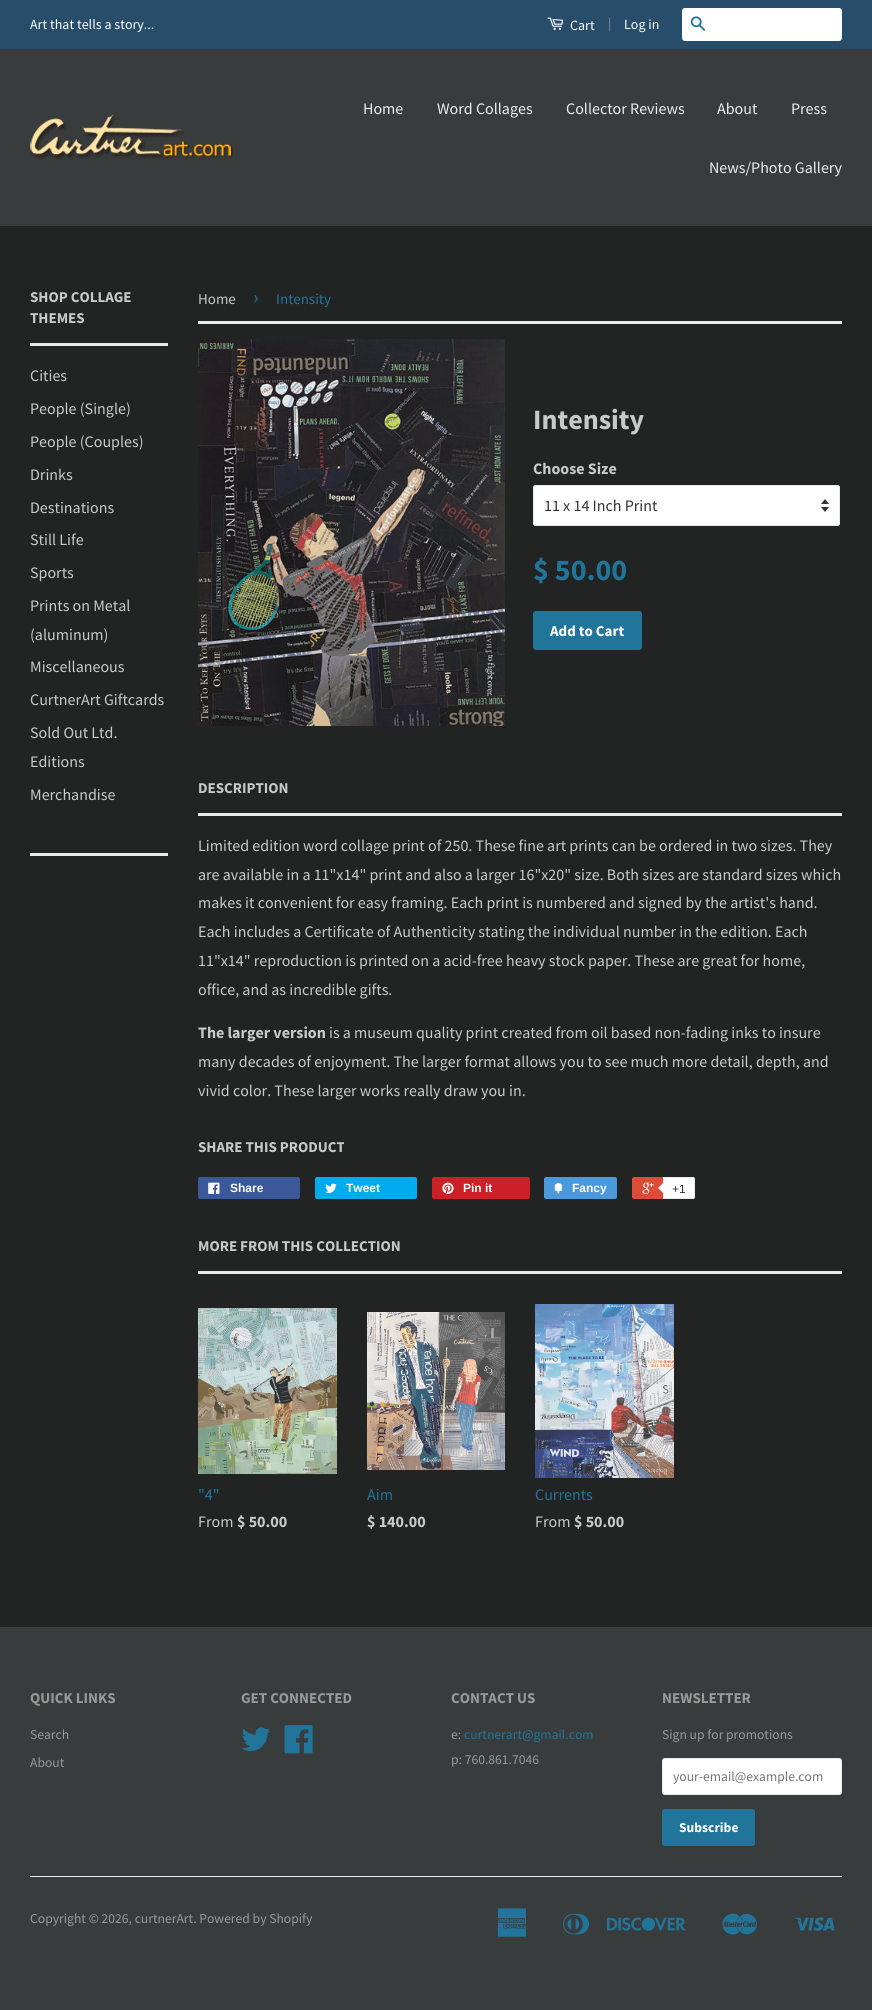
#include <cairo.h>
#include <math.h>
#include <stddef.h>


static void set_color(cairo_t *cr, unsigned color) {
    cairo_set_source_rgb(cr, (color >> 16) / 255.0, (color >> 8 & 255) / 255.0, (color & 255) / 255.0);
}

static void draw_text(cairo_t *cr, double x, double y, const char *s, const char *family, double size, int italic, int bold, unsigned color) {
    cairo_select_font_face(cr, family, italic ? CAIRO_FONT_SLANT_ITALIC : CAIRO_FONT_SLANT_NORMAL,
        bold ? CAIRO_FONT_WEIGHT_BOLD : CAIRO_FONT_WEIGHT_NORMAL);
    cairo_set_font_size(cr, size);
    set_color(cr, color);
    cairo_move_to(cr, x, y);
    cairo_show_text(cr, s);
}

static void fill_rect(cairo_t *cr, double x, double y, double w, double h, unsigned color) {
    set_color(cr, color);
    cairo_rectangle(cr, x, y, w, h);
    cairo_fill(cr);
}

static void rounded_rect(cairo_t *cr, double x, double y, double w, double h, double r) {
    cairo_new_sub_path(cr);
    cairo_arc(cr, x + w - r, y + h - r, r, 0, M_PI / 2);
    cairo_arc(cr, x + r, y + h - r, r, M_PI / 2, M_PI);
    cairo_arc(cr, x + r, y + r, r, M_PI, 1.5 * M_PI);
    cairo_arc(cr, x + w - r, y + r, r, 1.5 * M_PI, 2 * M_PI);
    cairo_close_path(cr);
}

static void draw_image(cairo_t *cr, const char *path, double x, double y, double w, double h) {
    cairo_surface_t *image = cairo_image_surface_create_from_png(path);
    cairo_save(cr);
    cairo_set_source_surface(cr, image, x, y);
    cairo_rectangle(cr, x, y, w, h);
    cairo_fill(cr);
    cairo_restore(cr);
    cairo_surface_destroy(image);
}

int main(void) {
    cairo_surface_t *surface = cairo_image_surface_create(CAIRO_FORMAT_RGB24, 872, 2010);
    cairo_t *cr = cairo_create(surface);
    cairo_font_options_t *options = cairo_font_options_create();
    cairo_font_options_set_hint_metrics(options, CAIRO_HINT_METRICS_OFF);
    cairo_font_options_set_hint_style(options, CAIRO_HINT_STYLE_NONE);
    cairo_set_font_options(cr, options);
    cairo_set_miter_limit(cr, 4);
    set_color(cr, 0x393C3C);
    cairo_paint(cr);
    fill_rect(cr, 0, 226, 872, 1401, 0x222424);
    fill_rect(cr, 0, 0, 872, 49, 0x284D6A);
    draw_text(cr, 30, 29, "Art that tells a story...", "Source Sans Pro", 14, 0, 0, 0xFFFFFF);
    draw_image(cr, "assets/img1.png", 547, 17, 17, 13);
    draw_text(cr, 570, 30, "Cart", "Source Sans Pro", 14, 0, 0, 0xFFFFFF);
    draw_text(cr, 608, 28, "|", "Source Sans Pro", 14, 0, 0, 0x7E94A6);
    draw_text(cr, 624, 29, "Log in", "Source Sans Pro", 14, 0, 0, 0xFFFFFF);
    rounded_rect(cr, 682, 8, 160, 33, 3);
    cairo_fill(cr);
    draw_image(cr, "assets/img2.png", 690, 16, 16, 15);
    draw_image(cr, "assets/img3.png", 30, 115, 203, 45);
    draw_text(cr, 363, 114, "Home", "Source Sans Pro", 16, 0, 0, 0xEEEEEE);
    draw_text(cr, 437, 114, "Word Collages", "Source Sans Pro", 16, 0, 0, 0xEEEEEE);
    draw_text(cr, 566, 114, "Collector Reviews", "Source Sans Pro", 16, 0, 0, 0xEEEEEE);
    draw_text(cr, 717, 114, "About", "Source Sans Pro", 16, 0, 0, 0xEEEEEE);
    draw_text(cr, 791, 114, "Press", "Source Sans Pro", 16, 0, 0, 0xEEEEEE);
    draw_text(cr, 709, 173, "News/Photo Gallery", "Source Sans Pro", 16, 0, 0, 0xEEEEEE);
    fill_rect(cr, 30, 343, 138, 3, 0xEAEAEA);
    draw_text(cr, 30, 302, "SHOP COLLAGE", "Source Sans Pro", 15, 0, 1, 0xC9C9C9);
    draw_text(cr, 30, 323, "THEMES", "Source Sans Pro", 15, 0, 1, 0xC9C9C9);
    draw_text(cr, 30, 381, "Cities", "Source Sans Pro", 16, 0, 0, 0xC9C9C9);
    draw_text(cr, 30, 414, "People (Single)", "Source Sans Pro", 16, 0, 0, 0xC9C9C9);
    draw_text(cr, 30, 447, "People (Couples)", "Source Sans Pro", 16, 0, 0, 0xC9C9C9);
    draw_text(cr, 30, 480, "Drinks", "Source Sans Pro", 16, 0, 0, 0xC9C9C9);
    draw_text(cr, 30, 513, "Destinations", "Source Sans Pro", 16, 0, 0, 0xC9C9C9);
    draw_text(cr, 30, 545, "Still Life", "Source Sans Pro", 16, 0, 0, 0xC9C9C9);
    draw_text(cr, 30, 578, "Sports", "Source Sans Pro", 16, 0, 0, 0xC9C9C9);
    draw_text(cr, 30, 611, "Prints on Metal", "Source Sans Pro", 16, 0, 0, 0xC9C9C9);
    draw_text(cr, 30, 640, "(aluminum)", "Source Sans Pro", 16, 0, 0, 0xC9C9C9);
    draw_text(cr, 30, 672, "Miscellaneous", "Source Sans Pro", 16, 0, 0, 0xC9C9C9);
    draw_text(cr, 30, 705, "CurtnerArt Giftcards", "Source Sans Pro", 16, 0, 0, 0xC9C9C9);
    draw_text(cr, 30, 738, "Sold Out Ltd.", "Source Sans Pro", 16, 0, 0, 0xC9C9C9);
    draw_text(cr, 30, 767, "Editions", "Source Sans Pro", 16, 0, 0, 0xC9C9C9);
    draw_text(cr, 30, 800, "Merchandise", "Source Sans Pro", 16, 0, 0, 0xC9C9C9);
    fill_rect(cr, 30, 853, 138, 3, 0xEAEAEA);
    fill_rect(cr, 198, 321, 644, 3, 0xEAEAEA);
    draw_text(cr, 198, 304, "Home", "Source Sans Pro", 15, 0, 0, 0xC9C9C9);
    draw_text(cr, 253, 304, "›", "Source Sans Pro", 21, 0, 0, 0x21759B);
    draw_text(cr, 276, 304, "Intensity", "Source Sans Pro", 15, 0, 0, 0x21759B);
    draw_image(cr, "assets/img4.png", 198, 339, 307, 387);
    draw_text(cr, 533, 429, "Intensity", "Source Sans Pro", 28, 0, 1, 0xC9C9C9);
    draw_text(cr, 533, 474, "Choose Size", "Source Sans Pro", 16, 0, 1, 0xC9C9C9);
    set_color(cr, 0xFFFFFF);
    rounded_rect(cr, 533, 485, 307, 41, 3);
    cairo_fill(cr);
    draw_image(cr, "assets/img5.png", 821, 499, 8, 13);
    rounded_rect(cr, 533.5, 485.5, 306, 40, 2.5);
    set_color(cr, 0xEAEAEA);
    cairo_set_line_width(cr, 1);
    cairo_stroke(cr);
    draw_text(cr, 544, 511, "11 x 14 Inch Print", "Source Sans Pro", 16, 0, 0, 0x333333);
    draw_text(cr, 533, 580, "$ 50.00", "Source Sans Pro", 30, 0, 1, 0x21759B);
    rounded_rect(cr, 533, 611, 109, 39, 3);
    cairo_fill(cr);
    draw_text(cr, 550, 636, "Add to Cart", "Source Sans Pro", 15, 0, 1, 0xFFFFFF);
    fill_rect(cr, 198, 813, 644, 3, 0xEAEAEA);
    draw_text(cr, 198, 793, "DESCRIPTION", "Source Sans Pro", 15, 0, 1, 0xC9C9C9);
    draw_text(cr, 198, 851, "Limited edition word collage print of 250. These fine art prints can be ordered in two sizes. They", "Source Sans Pro", 16, 0, 0, 0xC9C9C9);
    draw_text(cr, 198, 880, "are available in a 11\"x14\" print and also a larger 16\"x20\" size. Both sizes are standard sizes which", "Source Sans Pro", 16, 0, 0, 0xC9C9C9);
    draw_text(cr, 198, 908, "makes it convenient for easy framing. Each print is numbered and signed by the artist's hand.", "Source Sans Pro", 16, 0, 0, 0xC9C9C9);
    draw_text(cr, 198, 937, "Each includes a Certificate of Authenticity stating the individual number in the edition. Each", "Source Sans Pro", 16, 0, 0, 0xC9C9C9);
    draw_text(cr, 198, 966, "11\"x14\" reproduction is printed on a acid-free heavy stock paper. These are great for home,", "Source Sans Pro", 16, 0, 0, 0xC9C9C9);
    draw_text(cr, 198, 995, "office, and as incredible gifts.", "Source Sans Pro", 16, 0, 0, 0xC9C9C9);
    draw_text(cr, 198, 1038, "The larger version", "Source Sans Pro", 16, 0, 1, 0xC9C9C9);
    draw_text(cr, 329, 1038, "is a museum quality print created from oil based non-fading inks to insure", "Source Sans Pro", 16, 0, 0, 0xC9C9C9);
    draw_text(cr, 198, 1067, "many decades of enjoyment. The larger format allows you to see much more detail, depth, and", "Source Sans Pro", 16, 0, 0, 0xC9C9C9);
    draw_text(cr, 198, 1096, "vivid color. These larger works really draw you in.", "Source Sans Pro", 16, 0, 0, 0xC9C9C9);
    draw_text(cr, 198, 1152, "SHARE THIS PRODUCT", "Source Sans Pro", 15, 0, 1, 0xC9C9C9);
    set_color(cr, 0x3B5998);
    rounded_rect(cr, 198, 1177, 102, 22, 2);
    cairo_fill(cr);
    draw_image(cr, "assets/img6.png", 208, 1182, 12, 12);
    draw_text(cr, 230, 1192, "Share", "Liberation Sans", 12, 0, 1, 0xFFFFFF);
    set_color(cr, 0x00ACED);
    rounded_rect(cr, 315, 1177, 102, 22, 2);
    cairo_fill(cr);
    draw_image(cr, "assets/img7.png", 325, 1183, 12, 10);
    draw_text(cr, 346, 1192, "Tweet", "Liberation Sans", 12, 0, 1, 0xFFFFFF);
    set_color(cr, 0xCB2027);
    rounded_rect(cr, 432, 1177, 98, 22, 2);
    cairo_fill(cr);
    draw_image(cr, "assets/img8.png", 442, 1182, 12, 12);
    draw_text(cr, 463, 1192, "Pin it", "Liberation Sans", 12, 0, 1, 0xFFFFFF);
    set_color(cr, 0x4999DC);
    rounded_rect(cr, 544, 1177, 73, 22, 2);
    cairo_fill(cr);
    draw_image(cr, "assets/img9.png", 554, 1183, 9, 11);
    draw_text(cr, 572, 1192, "Fancy", "Liberation Sans", 12, 0, 1, 0xFFFFFF);
    set_color(cr, 0xDD4B39);
    rounded_rect(cr, 632, 1177, 61, 22, 2);
    cairo_fill(cr);
    draw_image(cr, "assets/img10.png", 642, 1182, 12, 12);
    set_color(cr, 0xFFFFFF);
    cairo_new_path(cr);
    cairo_move_to(cr, 663.5, 1177.5);
    cairo_line_to(cr, 693, 1177.5);
    cairo_curve_to(cr, 694, 1177.5, 694.5, 1178, 694.5, 1179);
    cairo_line_to(cr, 694.5, 1197);
    cairo_curve_to(cr, 694.5, 1198, 694, 1198.5, 693, 1198.5);
    cairo_line_to(cr, 663.5, 1198.5);
    cairo_close_path(cr);
    cairo_fill_preserve(cr);
    set_color(cr, 0xECECEC);
    cairo_stroke(cr);
    cairo_new_path(cr);
    cairo_move_to(cr, 664, 1182);
    cairo_line_to(cr, 664, 1194);
    cairo_line_to(cr, 658, 1188);
    cairo_close_path(cr);
    cairo_fill(cr);
    set_color(cr, 0xFFFFFF);
    cairo_new_path(cr);
    cairo_move_to(cr, 665, 1182);
    cairo_line_to(cr, 665, 1194);
    cairo_line_to(cr, 659, 1188);
    cairo_close_path(cr);
    cairo_fill(cr);
    draw_text(cr, 672, 1193, "+1", "Liberation Sans", 12, 0, 0, 0x333333);
    fill_rect(cr, 198, 1271, 644, 3, 0xEAEAEA);
    draw_text(cr, 198, 1251, "MORE FROM THIS COLLECTION", "Source Sans Pro", 15, 0, 1, 0xC9C9C9);
    draw_image(cr, "assets/img11.png", 198, 1308, 139, 166);
    draw_text(cr, 198, 1500, "\"4\"", "Source Sans Pro", 16, 0, 0, 0x21759B);
    draw_text(cr, 198, 1527, "From", "Source Sans Pro", 16, 0, 0, 0xC9C9C9);
    draw_text(cr, 237, 1527, "$ 50.00", "Source Sans Pro", 16, 0, 1, 0xC9C9C9);
    draw_image(cr, "assets/img12.png", 367, 1312, 138, 158);
    draw_text(cr, 367, 1500, "Aim", "Source Sans Pro", 16, 0, 0, 0x21759B);
    draw_text(cr, 367, 1527, "$ 140.00", "Source Sans Pro", 16, 0, 1, 0xC9C9C9);
    draw_image(cr, "assets/img13.png", 535, 1304, 139, 174);
    draw_text(cr, 535, 1500, "Currents", "Source Sans Pro", 16, 0, 0, 0x21759B);
    draw_text(cr, 535, 1527, "From", "Source Sans Pro", 16, 0, 0, 0xC9C9C9);
    draw_text(cr, 574, 1527, "$ 50.00", "Source Sans Pro", 16, 0, 1, 0xC9C9C9);
    draw_text(cr, 30, 1703, "QUICK LINKS", "Source Sans Pro", 15, 0, 1, 0x999999);
    draw_text(cr, 30, 1739, "Search", "Source Sans Pro", 13.6, 0, 0, 0x999999);
    draw_text(cr, 30, 1767, "About", "Source Sans Pro", 13.6, 0, 0, 0x999999);
    draw_text(cr, 241, 1703, "GET CONNECTED", "Source Sans Pro", 15, 0, 1, 0x999999);
    draw_image(cr, "assets/img14.png", 241, 1727, 29, 24);
    draw_image(cr, "assets/img15.png", 284, 1725, 29, 29);
    draw_text(cr, 451, 1703, "CONTACT US", "Source Sans Pro", 15, 0, 1, 0x999999);
    draw_text(cr, 451, 1739, "e:", "Source Sans Pro", 13.6, 0, 0, 0x999999);
    draw_text(cr, 464, 1739, "curtnerart@gmail.com", "Source Sans Pro", 13.6, 0, 0, 0x21759B);
    draw_text(cr, 451, 1764, "p: 760.861.7046", "Source Sans Pro", 13.6, 0, 0, 0x999999);
    draw_text(cr, 662, 1703, "NEWSLETTER", "Source Sans Pro", 15, 0, 1, 0x999999);
    draw_text(cr, 662, 1739, "Sign up for promotions", "Source Sans Pro", 13.6, 0, 0, 0x999999);
    set_color(cr, 0xFFFFFF);
    rounded_rect(cr, 662.5, 1758.5, 179, 36, 2.5);
    cairo_fill_preserve(cr);
    set_color(cr, 0xEAEAEA);
    cairo_stroke(cr);
    draw_text(cr, 673, 1781, "your-email@example.com", "Source Sans Pro", 13.6, 0, 0, 0x757575);
    set_color(cr, 0x21759B);
    rounded_rect(cr, 662, 1809, 93, 37, 3);
    cairo_fill(cr);
    draw_text(cr, 679, 1832, "Subscribe", "Source Sans Pro", 13.6, 0, 1, 0xFFFFFF);
    fill_rect(cr, 30, 1876, 812, 1, 0xEAEAEA);
    draw_text(cr, 30, 1923, "Copyright © 2026, curtnerArt. Powered by Shopify", "Source Sans Pro", 13.6, 0, 0, 0x999999);
    draw_image(cr, "assets/img16.png", 497, 1908, 30, 29);
    draw_image(cr, "assets/img17.png", 563, 1913, 26, 22);
    draw_image(cr, "assets/img18.png", 607, 1917, 79, 14);
    draw_image(cr, "assets/img19.png", 722, 1913, 35, 22);
    draw_image(cr, "assets/img20.png", 794, 1917, 41, 14);
    cairo_surface_write_to_png(surface, "output.png");
    cairo_font_options_destroy(options);
    cairo_destroy(cr);
    cairo_surface_destroy(surface);
    return 0;
}
